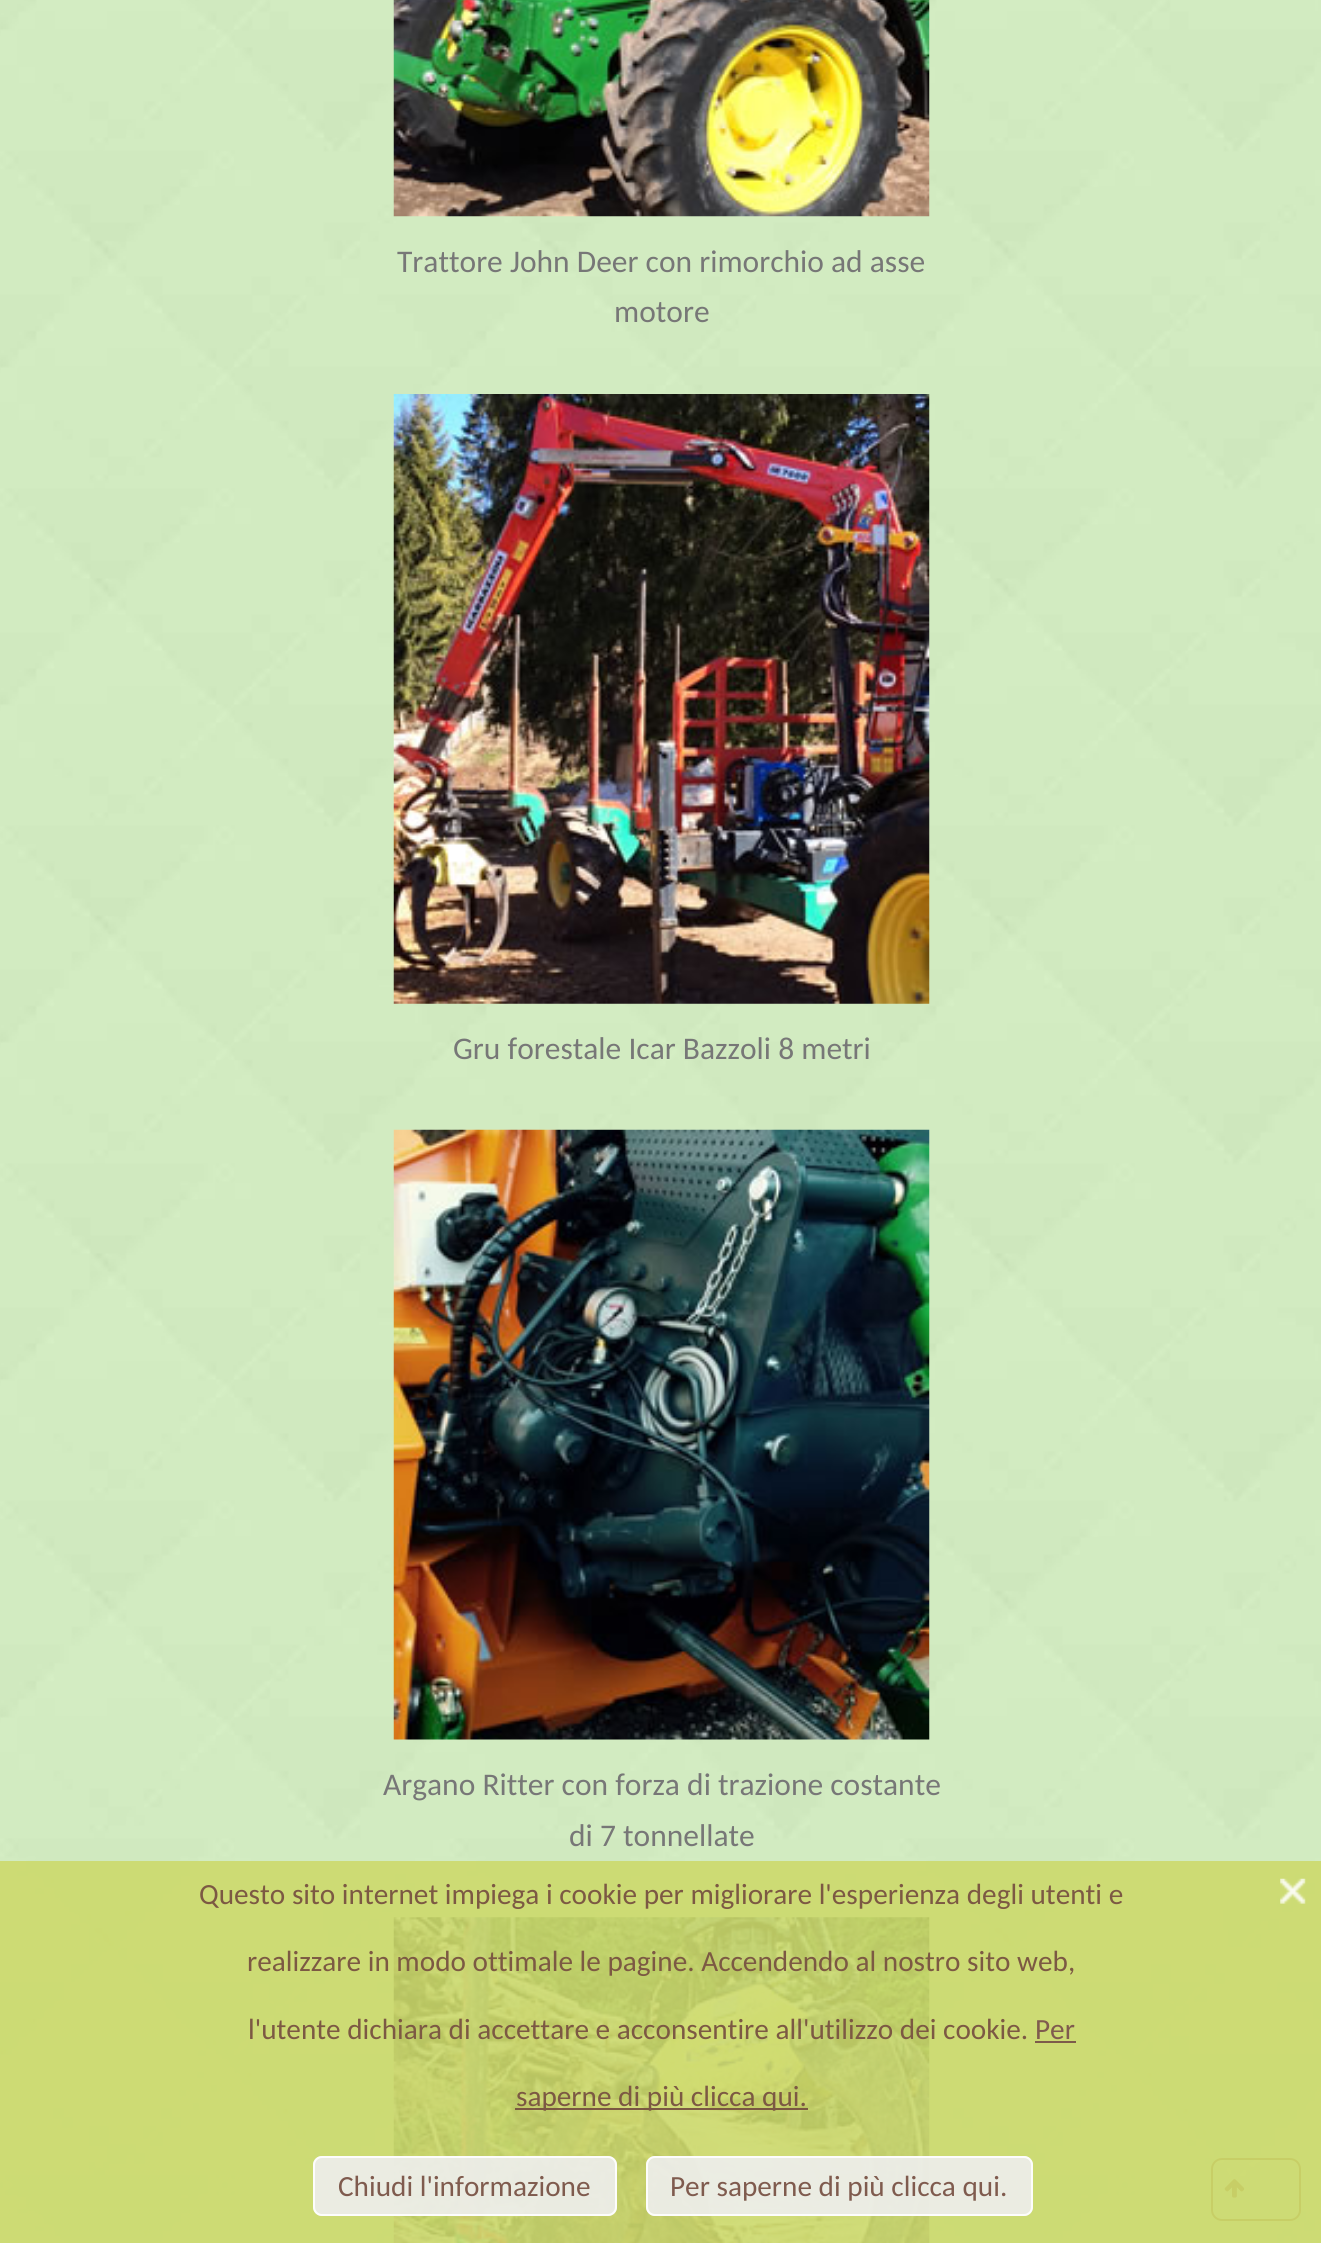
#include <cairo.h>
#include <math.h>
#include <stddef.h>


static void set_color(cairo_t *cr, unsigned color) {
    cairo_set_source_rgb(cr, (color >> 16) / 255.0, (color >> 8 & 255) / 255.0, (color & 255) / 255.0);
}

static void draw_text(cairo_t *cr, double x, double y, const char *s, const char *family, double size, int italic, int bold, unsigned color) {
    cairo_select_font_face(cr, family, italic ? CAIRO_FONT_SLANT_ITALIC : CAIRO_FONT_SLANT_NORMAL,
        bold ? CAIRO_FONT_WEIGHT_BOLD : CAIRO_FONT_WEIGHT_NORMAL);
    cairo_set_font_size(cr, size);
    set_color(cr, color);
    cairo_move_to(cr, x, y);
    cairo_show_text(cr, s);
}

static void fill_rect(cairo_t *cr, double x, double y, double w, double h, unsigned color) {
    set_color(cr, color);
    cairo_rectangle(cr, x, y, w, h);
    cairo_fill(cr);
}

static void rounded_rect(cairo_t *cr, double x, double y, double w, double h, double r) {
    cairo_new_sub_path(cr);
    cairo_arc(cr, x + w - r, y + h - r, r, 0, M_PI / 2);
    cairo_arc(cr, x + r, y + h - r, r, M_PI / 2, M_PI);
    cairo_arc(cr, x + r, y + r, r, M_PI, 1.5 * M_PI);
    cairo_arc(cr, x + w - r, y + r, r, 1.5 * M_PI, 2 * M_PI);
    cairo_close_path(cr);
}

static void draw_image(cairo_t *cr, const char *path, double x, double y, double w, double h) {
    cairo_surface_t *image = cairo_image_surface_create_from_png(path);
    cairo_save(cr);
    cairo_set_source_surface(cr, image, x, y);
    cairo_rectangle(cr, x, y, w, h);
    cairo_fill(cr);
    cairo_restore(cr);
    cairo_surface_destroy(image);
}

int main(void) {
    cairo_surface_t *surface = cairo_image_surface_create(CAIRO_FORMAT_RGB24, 1321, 2243);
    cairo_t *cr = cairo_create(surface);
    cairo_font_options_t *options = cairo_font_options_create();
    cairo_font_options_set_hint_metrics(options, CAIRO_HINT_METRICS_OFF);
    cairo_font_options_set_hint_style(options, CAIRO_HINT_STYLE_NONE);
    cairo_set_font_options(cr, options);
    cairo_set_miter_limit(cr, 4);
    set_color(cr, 0xFFFFFF);
    cairo_paint(cr);
    draw_image(cr, "assets/img1.png", 0, 0, 1321, 2243);
    draw_image(cr, "assets/img2.png", 393, 0, 537, 217);
    draw_text(cr, 397, 272, "Trattore John Deer con rimorchio ad asse", "Carlito", 31.5, 0, 0, 0x777777);
    draw_text(cr, 614, 322, "motore", "Carlito", 31.5, 0, 0, 0x777777);
    draw_image(cr, "assets/img3.png", 393, 394, 537, 610);
    draw_text(cr, 453, 1059, "Gru forestale Icar Bazzoli 8 metri", "Carlito", 31.5, 0, 0, 0x777777);
    draw_image(cr, "assets/img4.png", 393, 1129, 537, 611);
    draw_text(cr, 383, 1795, "Argano Ritter con forza di trazione costante", "Carlito", 31.5, 0, 0, 0x777777);
    draw_text(cr, 569, 1846, "di 7 tonnellate", "Carlito", 31.5, 0, 0, 0x777777);
    draw_image(cr, "assets/img5.png", 393, 1917, 537, 326);
    cairo_set_source_rgba(cr, 1, 1, 1, 0.2);
    rounded_rect(cr, 1212, 2159, 88, 61, 10);
    cairo_fill_preserve(cr);
    set_color(cr, 0x996633);
    cairo_stroke(cr);
    draw_image(cr, "assets/img7.png", 1224, 2179, 21, 19);
    cairo_set_source_rgba(cr, 0.8, 0.851, 0.424, 0.9);
    cairo_rectangle(cr, 0, 1861, 1321, 382);
    cairo_fill(cr);
    draw_text(cr, 199, 1904, "Questo sito internet impiega i cookie per migliorare l'esperienza degli utenti e", "Carlito", 29.25, 0, 0, 0x7C5943);
    draw_text(cr, 247, 1971, "realizzare in modo ottimale le pagine. Accendendo al nostro sito web,", "Carlito", 29.25, 0, 0, 0x7C5943);
    draw_text(cr, 248, 2039, "l'utente dichiara di accettare e acconsentire all'utilizzo dei cookie.", "Carlito", 29.25, 0, 0, 0x7C5943);
    draw_text(cr, 1035, 2039, "Per", "Carlito", 29.25, 0, 0, 0x7F5B4E);
    fill_rect(cr, 1035, 2041, 41, 2, 0x7D5B4A);
    cairo_set_source_rgba(cr, 0.451, 0.294, 0.239, 0.9);
    cairo_rectangle(cr, 515, 2108, 293, 2);
    cairo_fill(cr);
    draw_text(cr, 516, 2106, "saperne di più clicca qui.", "Carlito", 29.25, 0, 0, 0x7C5943);
    draw_image(cr, "assets/img6.png", 1280, 1878, 26, 26);
    cairo_set_source_rgba(cr, 0.937, 0.937, 0.937, 0.9);
    rounded_rect(cr, 313, 2156, 304, 60, 9);
    cairo_fill(cr);
    rounded_rect(cr, 314, 2157, 302, 58, 8);
    cairo_set_source_rgba(cr, 1, 1, 1, 0.9);
    cairo_stroke(cr);
    draw_text(cr, 338, 2196, "Chiudi l'informazione", "Carlito", 29.25, 0, 0, 0x7F5B4E);
    cairo_set_source_rgba(cr, 0.937, 0.937, 0.937, 0.9);
    rounded_rect(cr, 646, 2156, 387, 60, 9);
    cairo_fill(cr);
    rounded_rect(cr, 647, 2157, 385, 58, 8);
    cairo_set_source_rgba(cr, 1, 1, 1, 0.9);
    cairo_stroke(cr);
    draw_text(cr, 670, 2196, "Per saperne di più clicca qui.", "Carlito", 29.25, 0, 0, 0x7F5B4E);
    cairo_surface_write_to_png(surface, "output.png");
    cairo_font_options_destroy(options);
    cairo_destroy(cr);
    cairo_surface_destroy(surface);
    return 0;
}
